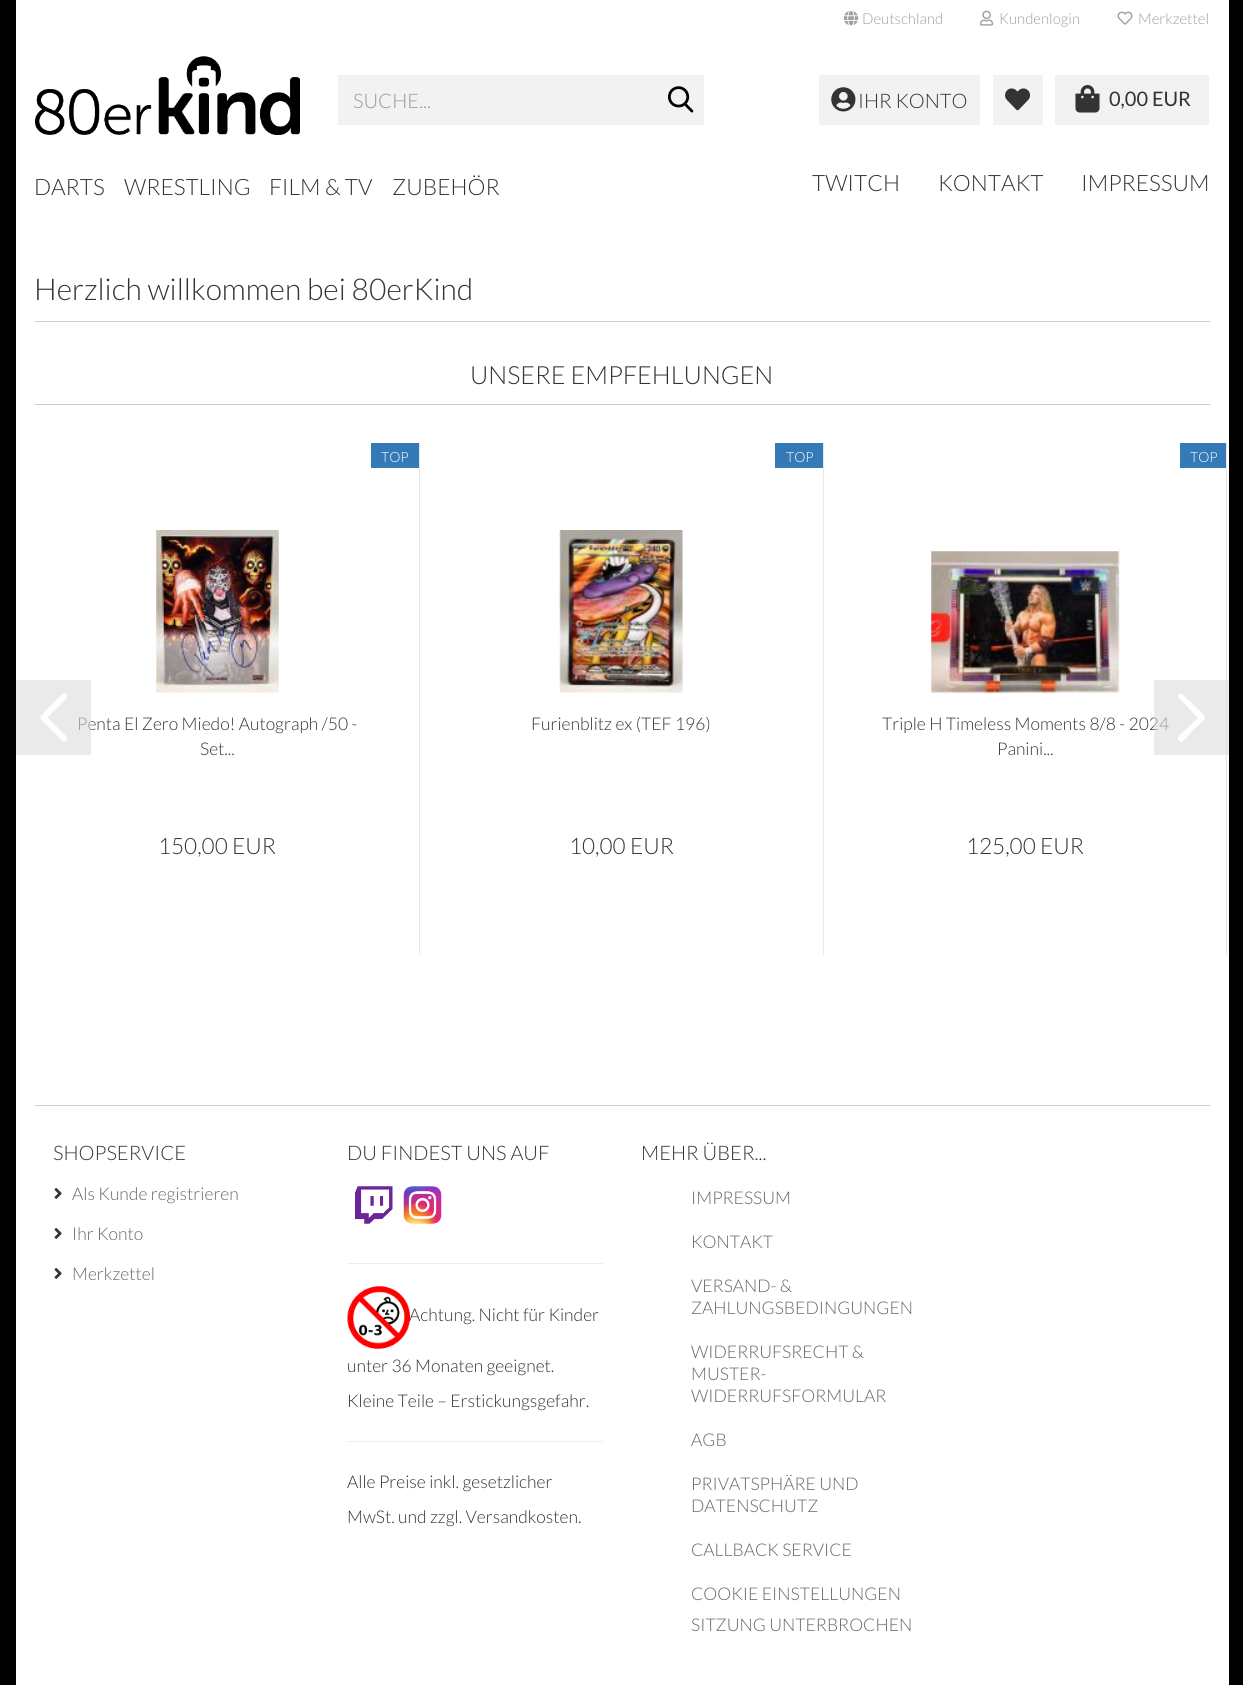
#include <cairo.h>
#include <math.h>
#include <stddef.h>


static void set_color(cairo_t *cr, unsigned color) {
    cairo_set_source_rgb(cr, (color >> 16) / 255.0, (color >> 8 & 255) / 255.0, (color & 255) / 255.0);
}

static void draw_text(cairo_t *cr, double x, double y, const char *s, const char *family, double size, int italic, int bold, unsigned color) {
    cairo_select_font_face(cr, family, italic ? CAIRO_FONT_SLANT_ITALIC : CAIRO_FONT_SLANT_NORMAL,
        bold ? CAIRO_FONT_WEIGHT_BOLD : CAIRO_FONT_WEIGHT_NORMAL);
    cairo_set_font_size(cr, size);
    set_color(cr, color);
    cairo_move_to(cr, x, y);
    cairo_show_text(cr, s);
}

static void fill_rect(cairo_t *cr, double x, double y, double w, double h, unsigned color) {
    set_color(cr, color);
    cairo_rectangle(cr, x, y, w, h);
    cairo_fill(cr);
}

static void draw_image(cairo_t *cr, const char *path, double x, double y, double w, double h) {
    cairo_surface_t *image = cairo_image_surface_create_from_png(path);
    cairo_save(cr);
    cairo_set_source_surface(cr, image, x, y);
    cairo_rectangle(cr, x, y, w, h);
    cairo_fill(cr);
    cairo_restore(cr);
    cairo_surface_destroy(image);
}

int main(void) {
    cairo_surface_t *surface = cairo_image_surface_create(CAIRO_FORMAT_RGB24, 1243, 1685);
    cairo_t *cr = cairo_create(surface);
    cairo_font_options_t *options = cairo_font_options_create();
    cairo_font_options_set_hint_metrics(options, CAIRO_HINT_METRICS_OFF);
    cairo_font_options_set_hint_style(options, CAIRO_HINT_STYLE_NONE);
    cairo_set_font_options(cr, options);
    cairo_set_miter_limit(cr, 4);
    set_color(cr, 0x000000);
    cairo_paint(cr);
    fill_rect(cr, 16, 0, 1213, 1685, 0xFFFFFF);
    draw_image(cr, "assets/img1.png", 843, 10, 16, 16);
    draw_text(cr, 862, 24, "Deutschland", "Lato Light", 15, 0, 0, 0x9F9F9F);
    draw_image(cr, "assets/img2.png", 980, 10, 14, 16);
    draw_text(cr, 999, 24, "Kundenlogin", "Lato Light", 15, 0, 0, 0x9F9F9F);
    draw_image(cr, "assets/img3.png", 1117, 11, 16, 14);
    draw_text(cr, 1138, 24, "Merkzettel", "Lato Light", 15, 0, 0, 0x9F9F9F);
    draw_image(cr, "assets/img4.png", 35, 56, 265, 79);
    fill_rect(cr, 338, 75, 366, 50, 0xF2F2F2);
    draw_text(cr, 353, 108, "SUCHE...", "Lato Light", 20, 0, 0, 0x999999);
    draw_image(cr, "assets/img5.png", 668, 86, 26, 27);
    fill_rect(cr, 819, 75, 161, 50, 0xF2F2F2);
    draw_image(cr, "assets/img6.png", 831, 87, 25, 25);
    draw_text(cr, 858, 108, "IHR KONTO", "Lato Light", 20, 0, 0, 0x333333);
    fill_rect(cr, 993, 75, 50, 50, 0xF2F2F2);
    draw_image(cr, "assets/img7.png", 1005, 88, 25, 23);
    fill_rect(cr, 1055, 75, 154, 50, 0xF2F2F2);
    draw_image(cr, "assets/img8.png", 1075, 85, 25, 28);
    draw_text(cr, 1109, 106, "0,00 EUR", "Lato", 20, 0, 0, 0x333333);
    draw_text(cr, 34, 195, "DARTS", "Lato Light", 22.5, 0, 0, 0x333333);
    draw_text(cr, 124, 195, "WRESTLING", "Lato Light", 22.5, 0, 0, 0x333333);
    draw_text(cr, 269, 195, "FILM & TV", "Lato Light", 22.5, 0, 0, 0x333333);
    draw_text(cr, 392, 195, "ZUBEHÖR", "Lato Light", 22.5, 0, 0, 0x333333);
    draw_text(cr, 812, 191, "TWITCH", "Lato Light", 22.5, 0, 0, 0x333333);
    draw_text(cr, 938, 191, "KONTAKT", "Lato Light", 22.5, 0, 0, 0x333333);
    draw_text(cr, 1081, 191, "IMPRESSUM", "Lato Light", 22.5, 0, 0, 0x333333);
    fill_rect(cr, 35, 321, 1175, 1, 0xCCCCCC);
    draw_text(cr, 34, 300, "Herzlich willkommen bei 80erKind", "Lato Light", 30, 0, 0, 0x333333);
    fill_rect(cr, 35, 404, 1175, 1, 0xCCCCCC);
    draw_text(cr, 470, 384, "UNSERE EMPFEHLUNGEN", "Lato Light", 25, 0, 0, 0x333333);
    draw_text(cr, 77, 730, "Penta El Zero Miedo! Autograph /50 -", "Lato Light", 17.5, 0, 0, 0x333333);
    cairo_set_source_rgba(cr, 0.863, 0.863, 0.863, 0.6);
    cairo_rectangle(cr, 16, 680, 75, 75);
    cairo_fill(cr);
    draw_image(cr, "assets/img9.png", 40, 693, 28, 49);
    fill_rect(cr, 419, 443, 1, 512, 0xE7E7E7);
    fill_rect(cr, 371, 443, 48, 25, 0x337AB7);
    draw_text(cr, 381, 462, "TOP", "Lato Light", 14, 0, 0, 0xFFFFFF);
    draw_image(cr, "assets/img10.png", 156, 530, 123, 163);
    draw_text(cr, 200, 755, "Set...", "Lato Light", 17.5, 0, 0, 0x333333);
    draw_text(cr, 158, 854, "150,00 EUR", "Lato Light", 22.5, 0, 0, 0x333333);
    fill_rect(cr, 823, 443, 1, 512, 0xE7E7E7);
    fill_rect(cr, 775, 443, 48, 25, 0x337AB7);
    draw_text(cr, 786, 462, "TOP", "Lato Light", 14, 0, 0, 0xFFFFFF);
    draw_image(cr, "assets/img11.png", 559, 530, 124, 163);
    draw_text(cr, 531, 730, "Furienblitz ex (TEF 196)", "Lato Light", 17.5, 0, 0, 0x333333);
    draw_text(cr, 569, 854, "10,00 EUR", "Lato Light", 22.5, 0, 0, 0x333333);
    fill_rect(cr, 1226, 443, 1, 512, 0xE7E7E7);
    fill_rect(cr, 1180, 443, 46, 25, 0x337AB7);
    draw_text(cr, 1190, 462, "TOP", "Lato Light", 14, 0, 0, 0xFFFFFF);
    draw_image(cr, "assets/img12.png", 931, 551, 189, 143);
    draw_text(cr, 882, 730, "Triple H Timeless Moments 8/8 - 2024", "Lato Light", 17.5, 0, 0, 0x333333);
    draw_text(cr, 997, 755, "Panini...", "Lato Light", 17.5, 0, 0, 0x333333);
    draw_text(cr, 966, 854, "125,00 EUR", "Lato Light", 22.5, 0, 0, 0x333333);
    cairo_set_source_rgba(cr, 0.863, 0.863, 0.863, 0.6);
    cairo_rectangle(cr, 1154, 680, 75, 75);
    cairo_fill(cr);
    set_color(cr, 0xFFFFFF);
    cairo_new_path(cr);
    cairo_move_to(cr, 1181, 742);
    cairo_line_to(cr, 1178, 740);
    cairo_curve_to(cr, 1176, 738, 1180, 735, 1182, 733);
    cairo_line_to(cr, 1198, 718);
    cairo_line_to(cr, 1178, 697);
    cairo_curve_to(cr, 1177, 695, 1180, 693, 1182, 694);
    cairo_line_to(cr, 1197, 708);
    cairo_curve_to(cr, 1209, 720, 1207, 717, 1193, 730);
    cairo_curve_to(cr, 1191, 732, 1184, 742, 1181, 742);
    cairo_close_path(cr);
    cairo_fill(cr);
    fill_rect(cr, 35, 1105, 1175, 1, 0xCCCCCC);
    draw_text(cr, 53, 1160, "SHOPSERVICE", "Lato Light", 20, 0, 0, 0x333333);
    draw_image(cr, "assets/img13.png", 54, 1188, 8, 11);
    draw_text(cr, 72, 1200, "Als Kunde registrieren", "Lato Light", 17.5, 0, 0, 0x666666);
    draw_image(cr, "assets/img13.png", 54, 1228, 8, 11);
    draw_text(cr, 72, 1240, "Ihr Konto", "Lato Light", 17.5, 0, 0, 0x666666);
    draw_image(cr, "assets/img13.png", 54, 1268, 8, 11);
    draw_text(cr, 72, 1280, "Merkzettel", "Lato Light", 17.5, 0, 0, 0x666666);
    draw_text(cr, 347, 1160, "DU FINDEST UNS AUF", "Lato Light", 20, 0, 0, 0x333333);
    draw_image(cr, "assets/img14.png", 355, 1186, 38, 38);
    draw_image(cr, "assets/img15.png", 403, 1186, 39, 38);
    fill_rect(cr, 348, 1263, 255, 1, 0xEEEEEE);
    draw_image(cr, "assets/img16.png", 347, 1286, 63, 63);
    draw_text(cr, 409, 1321, "Achtung. Nicht für Kinder", "Lato Light", 17.5, 0, 0, 0x333333);
    draw_text(cr, 347, 1372, "unter 36 Monaten geeignet.", "Lato Light", 17.5, 0, 0, 0x333333);
    draw_text(cr, 347, 1407, "Kleine Teile – Erstickungsgefahr.", "Lato Light", 17.5, 0, 0, 0x333333);
    fill_rect(cr, 348, 1441, 255, 1, 0xEEEEEE);
    draw_text(cr, 347, 1488, "Alle Preise inkl. gesetzlicher", "Lato Light", 17.5, 0, 0, 0x333333);
    draw_text(cr, 347, 1523, "MwSt. und zzgl. Versandkosten.", "Lato Light", 17.5, 0, 0, 0x333333);
    draw_text(cr, 641, 1160, "MEHR ÜBER...", "Lato Light", 20, 0, 0, 0x333333);
    draw_text(cr, 691, 1204, "IMPRESSUM", "Lato Light", 17.5, 0, 0, 0x666666);
    draw_text(cr, 691, 1248, "KONTAKT", "Lato Light", 17.5, 0, 0, 0x666666);
    draw_text(cr, 691, 1292, "VERSAND- &", "Lato Light", 17.5, 0, 0, 0x666666);
    draw_text(cr, 691, 1314, "ZAHLUNGSBEDINGUNGEN", "Lato Light", 17.5, 0, 0, 0x666666);
    draw_text(cr, 691, 1358, "WIDERRUFSRECHT &", "Lato Light", 17.5, 0, 0, 0x666666);
    draw_text(cr, 691, 1380, "MUSTER-", "Lato Light", 17.5, 0, 0, 0x666666);
    draw_text(cr, 691, 1402, "WIDERRUFSFORMULAR", "Lato Light", 17.5, 0, 0, 0x666666);
    draw_text(cr, 691, 1446, "AGB", "Lato Light", 17.5, 0, 0, 0x666666);
    draw_text(cr, 691, 1490, "PRIVATSPHÄRE UND", "Lato Light", 17.5, 0, 0, 0x666666);
    draw_text(cr, 691, 1512, "DATENSCHUTZ", "Lato Light", 17.5, 0, 0, 0x666666);
    draw_text(cr, 691, 1556, "CALLBACK SERVICE", "Lato Light", 17.5, 0, 0, 0x666666);
    draw_text(cr, 691, 1600, "COOKIE EINSTELLUNGEN", "Lato Light", 17.5, 0, 0, 0x666666);
    draw_text(cr, 691, 1631, "SITZUNG UNTERBROCHEN", "Lato Light", 17.5, 0, 0, 0x666666);
    cairo_surface_write_to_png(surface, "output.png");
    cairo_font_options_destroy(options);
    cairo_destroy(cr);
    cairo_surface_destroy(surface);
    return 0;
}
